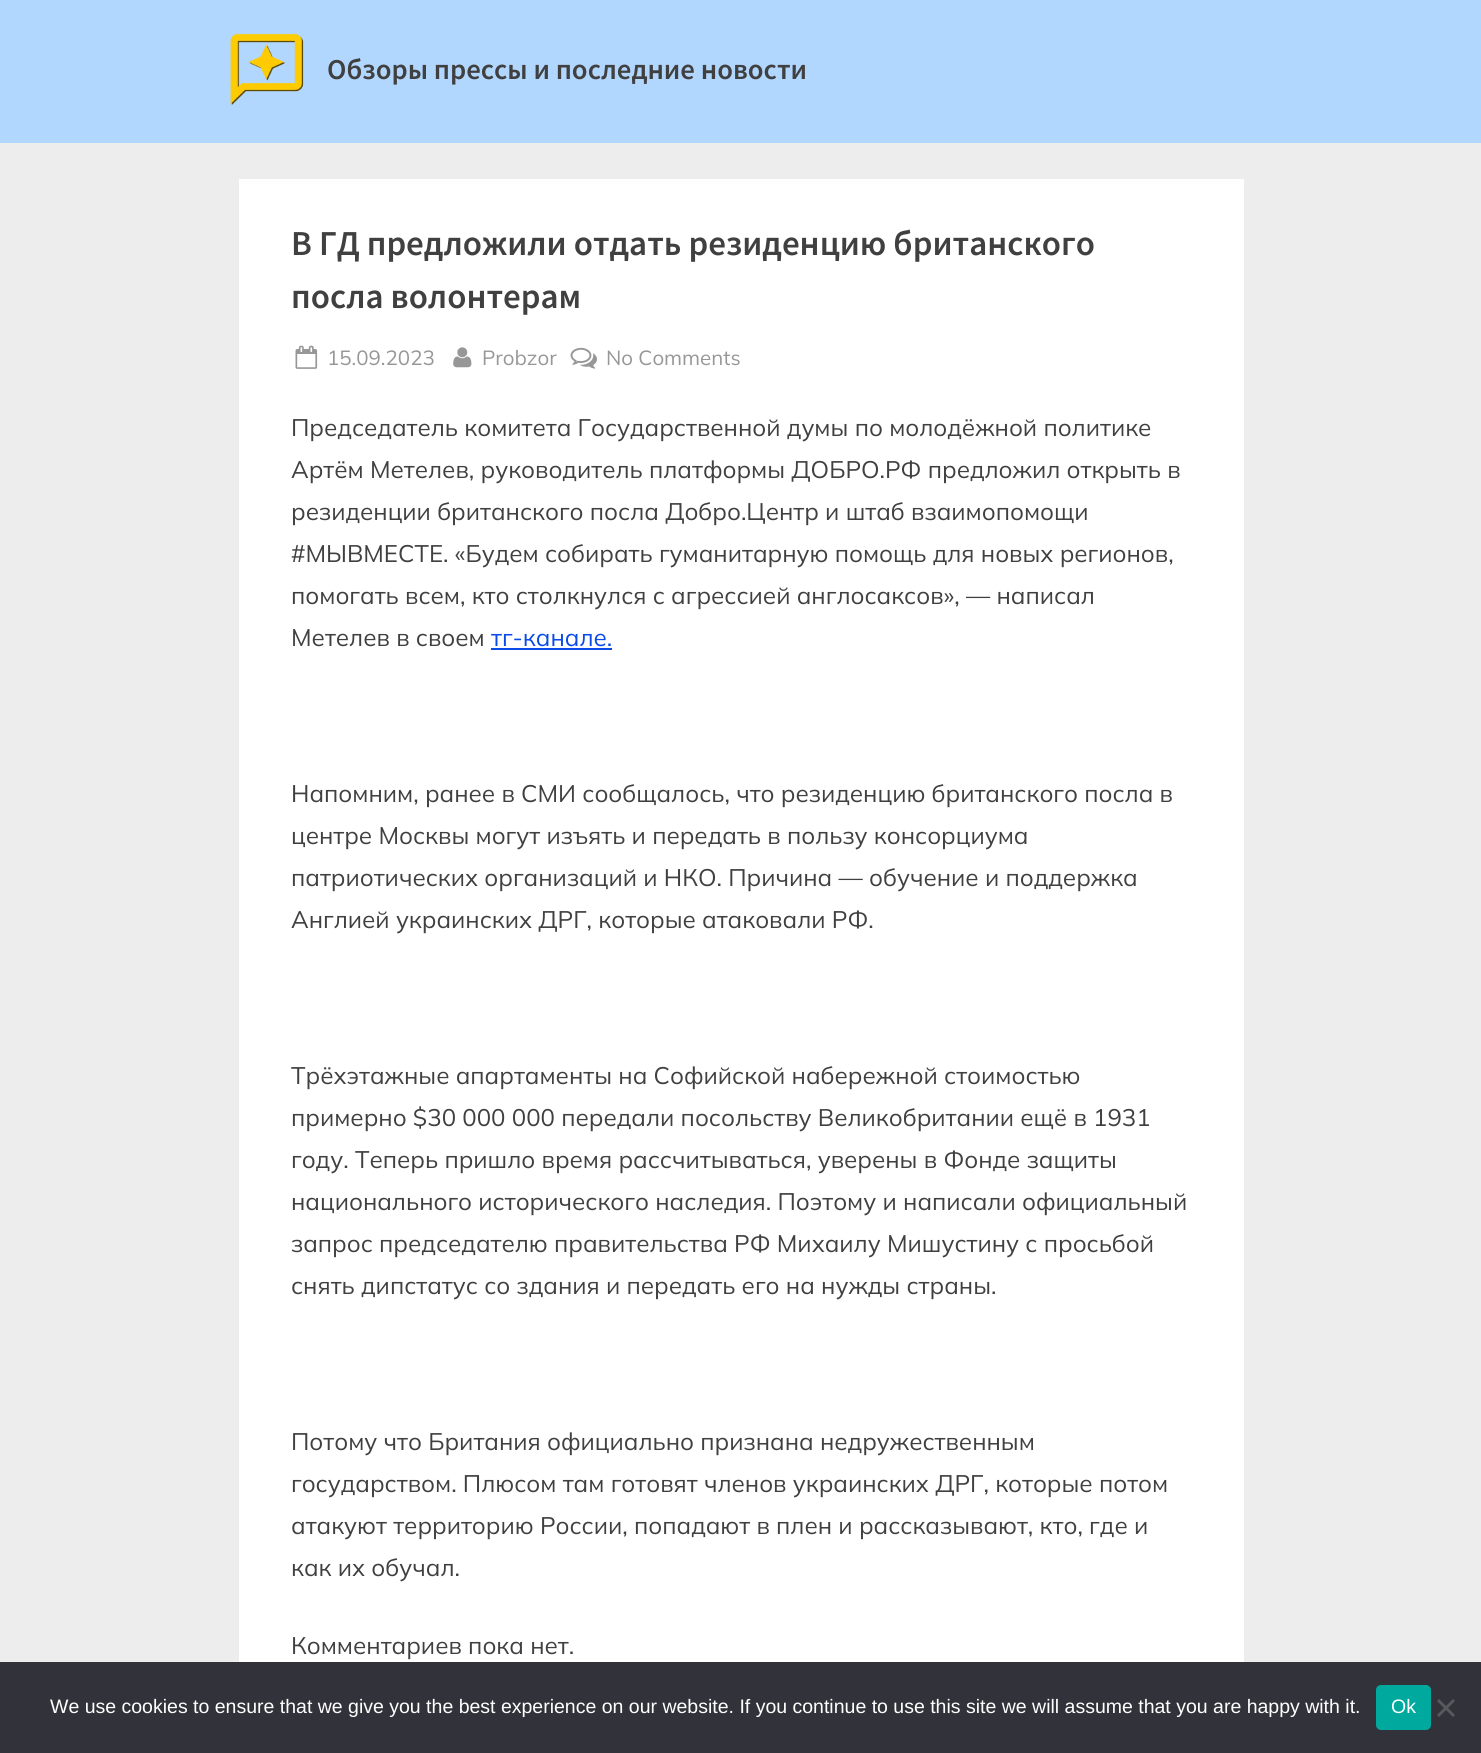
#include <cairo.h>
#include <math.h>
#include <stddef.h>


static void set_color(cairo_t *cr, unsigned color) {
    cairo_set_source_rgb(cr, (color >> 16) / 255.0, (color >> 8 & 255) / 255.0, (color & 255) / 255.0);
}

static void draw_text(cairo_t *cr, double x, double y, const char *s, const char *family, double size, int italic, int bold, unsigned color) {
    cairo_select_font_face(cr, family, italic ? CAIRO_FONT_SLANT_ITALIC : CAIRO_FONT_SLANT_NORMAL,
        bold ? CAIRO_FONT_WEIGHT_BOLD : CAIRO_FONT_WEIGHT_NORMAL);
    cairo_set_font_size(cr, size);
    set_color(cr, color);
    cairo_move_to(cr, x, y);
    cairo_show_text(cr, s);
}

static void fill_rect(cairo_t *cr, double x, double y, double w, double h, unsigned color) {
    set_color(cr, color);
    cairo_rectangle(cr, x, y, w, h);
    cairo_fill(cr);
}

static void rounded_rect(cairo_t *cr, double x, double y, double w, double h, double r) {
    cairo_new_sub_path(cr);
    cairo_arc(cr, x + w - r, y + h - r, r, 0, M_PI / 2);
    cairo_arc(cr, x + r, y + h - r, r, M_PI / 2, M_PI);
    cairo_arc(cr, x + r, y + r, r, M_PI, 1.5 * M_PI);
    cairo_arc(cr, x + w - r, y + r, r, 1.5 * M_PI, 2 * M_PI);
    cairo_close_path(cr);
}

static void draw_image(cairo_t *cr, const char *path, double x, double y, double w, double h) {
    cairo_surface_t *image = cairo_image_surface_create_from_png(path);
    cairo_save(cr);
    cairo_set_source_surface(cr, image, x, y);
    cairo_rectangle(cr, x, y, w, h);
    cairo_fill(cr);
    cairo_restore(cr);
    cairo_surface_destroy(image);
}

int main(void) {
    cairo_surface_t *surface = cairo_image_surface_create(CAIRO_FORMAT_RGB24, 1481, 1753);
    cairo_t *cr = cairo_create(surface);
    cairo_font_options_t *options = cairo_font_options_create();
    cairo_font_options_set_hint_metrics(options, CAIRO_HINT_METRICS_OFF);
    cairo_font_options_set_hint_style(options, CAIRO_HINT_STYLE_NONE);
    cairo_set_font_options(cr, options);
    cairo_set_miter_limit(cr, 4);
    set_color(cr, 0xEDEDED);
    cairo_paint(cr);
    fill_rect(cr, 0, 0, 1481, 143, 0xB2D7FF);
    draw_image(cr, "assets/img1.png", 230, 33, 74, 72);
    draw_text(cr, 327, 79, "Обзоры прессы и последние новости", "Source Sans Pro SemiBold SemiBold", 28.75, 0, 0, 0x404040);
    fill_rect(cr, 239, 179, 1005, 1483, 0xFFFFFF);
    draw_text(cr, 291, 255, "В ГД предложили отдать резиденцию британского", "Source Sans Pro SemiBold SemiBold", 35, 0, 0, 0x404040);
    draw_text(cr, 291, 308, "посла волонтерам", "Source Sans Pro SemiBold SemiBold", 35, 0, 0, 0x404040);
    draw_image(cr, "assets/img2.png", 295, 345, 23, 24);
    draw_text(cr, 327, 365, "15.09.2023", "Mulish", 20.5, 0, 0, 0x979797);
    draw_image(cr, "assets/img3.png", 453, 347, 19, 21);
    draw_text(cr, 482, 365, "Probzor", "Mulish", 20.5, 0, 0, 0x979797);
    draw_image(cr, "assets/img4.png", 570, 347, 27, 22);
    draw_text(cr, 606, 365, "No Comments", "Mulish", 20.5, 0, 0, 0x979797);
    draw_text(cr, 291, 436, "Председатель комитета Государственной думы по молодёжной политике", "Mulish", 24, 0, 0, 0x404040);
    draw_text(cr, 291, 478, "Артём Метелев, руководитель платформы ДОБРО.РФ предложил открыть в", "Mulish", 24, 0, 0, 0x404040);
    draw_text(cr, 291, 520, "резиденции британского посла Добро.Центр и штаб взаимопомощи", "Mulish", 24, 0, 0, 0x404040);
    draw_text(cr, 291, 562, "#МЫВМЕСТЕ. «Будем собирать гуманитарную помощь для новых регионов,", "Mulish", 24, 0, 0, 0x404040);
    draw_text(cr, 291, 604, "помогать всем, кто столкнулся с агрессией англосаксов», — написал", "Mulish", 24, 0, 0, 0x404040);
    draw_text(cr, 291, 646, "Метелев в своем", "Mulish", 24, 0, 0, 0x404040);
    draw_text(cr, 491, 646, "тг-канале.", "Mulish", 24, 0, 0, 0x094AE9);
    fill_rect(cr, 491, 648, 121, 2, 0x094AE9);
    draw_text(cr, 291, 802, "Напомним, ранее в СМИ сообщалось, что резиденцию британского посла в", "Mulish", 24, 0, 0, 0x404040);
    draw_text(cr, 291, 844, "центре Москвы могут изъять и передать в пользу консорциума", "Mulish", 24, 0, 0, 0x404040);
    draw_text(cr, 291, 886, "патриотических организаций и НКО. Причина — обучение и поддержка", "Mulish", 24, 0, 0, 0x404040);
    draw_text(cr, 291, 928, "Англией украинских ДРГ, которые атаковали РФ.", "Mulish", 24, 0, 0, 0x404040);
    draw_text(cr, 291, 1084, "Трёхэтажные апартаменты на Софийской набережной стоимостью", "Mulish", 24, 0, 0, 0x404040);
    draw_text(cr, 291, 1126, "примерно $30 000 000 передали посольству Великобритании ещё в 1931", "Mulish", 24, 0, 0, 0x404040);
    draw_text(cr, 291, 1168, "году. Теперь пришло время рассчитываться, уверены в Фонде защиты", "Mulish", 24, 0, 0, 0x404040);
    draw_text(cr, 291, 1210, "национального исторического наследия. Поэтому и написали официальный", "Mulish", 24, 0, 0, 0x404040);
    draw_text(cr, 291, 1252, "запрос председателю правительства РФ Михаилу Мишустину с просьбой", "Mulish", 24, 0, 0, 0x404040);
    draw_text(cr, 291, 1294, "снять дипстатус со здания и передать его на нужды страны.", "Mulish", 24, 0, 0, 0x404040);
    draw_text(cr, 291, 1450, "Потому что Британия официально признана недружественным", "Mulish", 24, 0, 0, 0x404040);
    draw_text(cr, 291, 1492, "государством. Плюсом там готовят членов украинских ДРГ, которые потом", "Mulish", 24, 0, 0, 0x404040);
    draw_text(cr, 291, 1534, "атакуют территорию России, попадают в плен и рассказывают, кто, где и", "Mulish", 24, 0, 0, 0x404040);
    draw_text(cr, 291, 1576, "как их обучал.", "Mulish", 24, 0, 0, 0x404040);
    draw_text(cr, 291, 1654, "Комментариев пока нет.", "Mulish", 24, 0, 0, 0x404040);
    fill_rect(cr, 0, 1662, 1481, 91, 0x32323A);
    draw_text(cr, 50, 1713, "We use cookies to ensure that we give you the best experience on our website. If you continue to use this site we will assume that you are happy with it.", "Liberation Sans", 19.5, 0, 0, 0xFFFFFF);
    set_color(cr, 0x00A99D);
    rounded_rect(cr, 1376, 1685, 55, 45, 5);
    cairo_fill(cr);
    draw_text(cr, 1391, 1713, "Ok", "Liberation Sans", 19.5, 0, 0, 0xFFFFFF);
    set_color(cr, 0x59595D);
    cairo_new_path(cr);
    cairo_move_to(cr, 1453, 1699);
    cairo_line_to(cr, 1455, 1701);
    cairo_line_to(cr, 1439, 1717);
    cairo_line_to(cr, 1437, 1715);
    cairo_close_path(cr);
    cairo_fill(cr);
    cairo_new_path(cr);
    cairo_move_to(cr, 1437, 1701);
    cairo_line_to(cr, 1439, 1699);
    cairo_line_to(cr, 1455, 1715);
    cairo_line_to(cr, 1453, 1717);
    cairo_close_path(cr);
    cairo_fill(cr);
    cairo_surface_write_to_png(surface, "output.png");
    cairo_font_options_destroy(options);
    cairo_destroy(cr);
    cairo_surface_destroy(surface);
    return 0;
}
